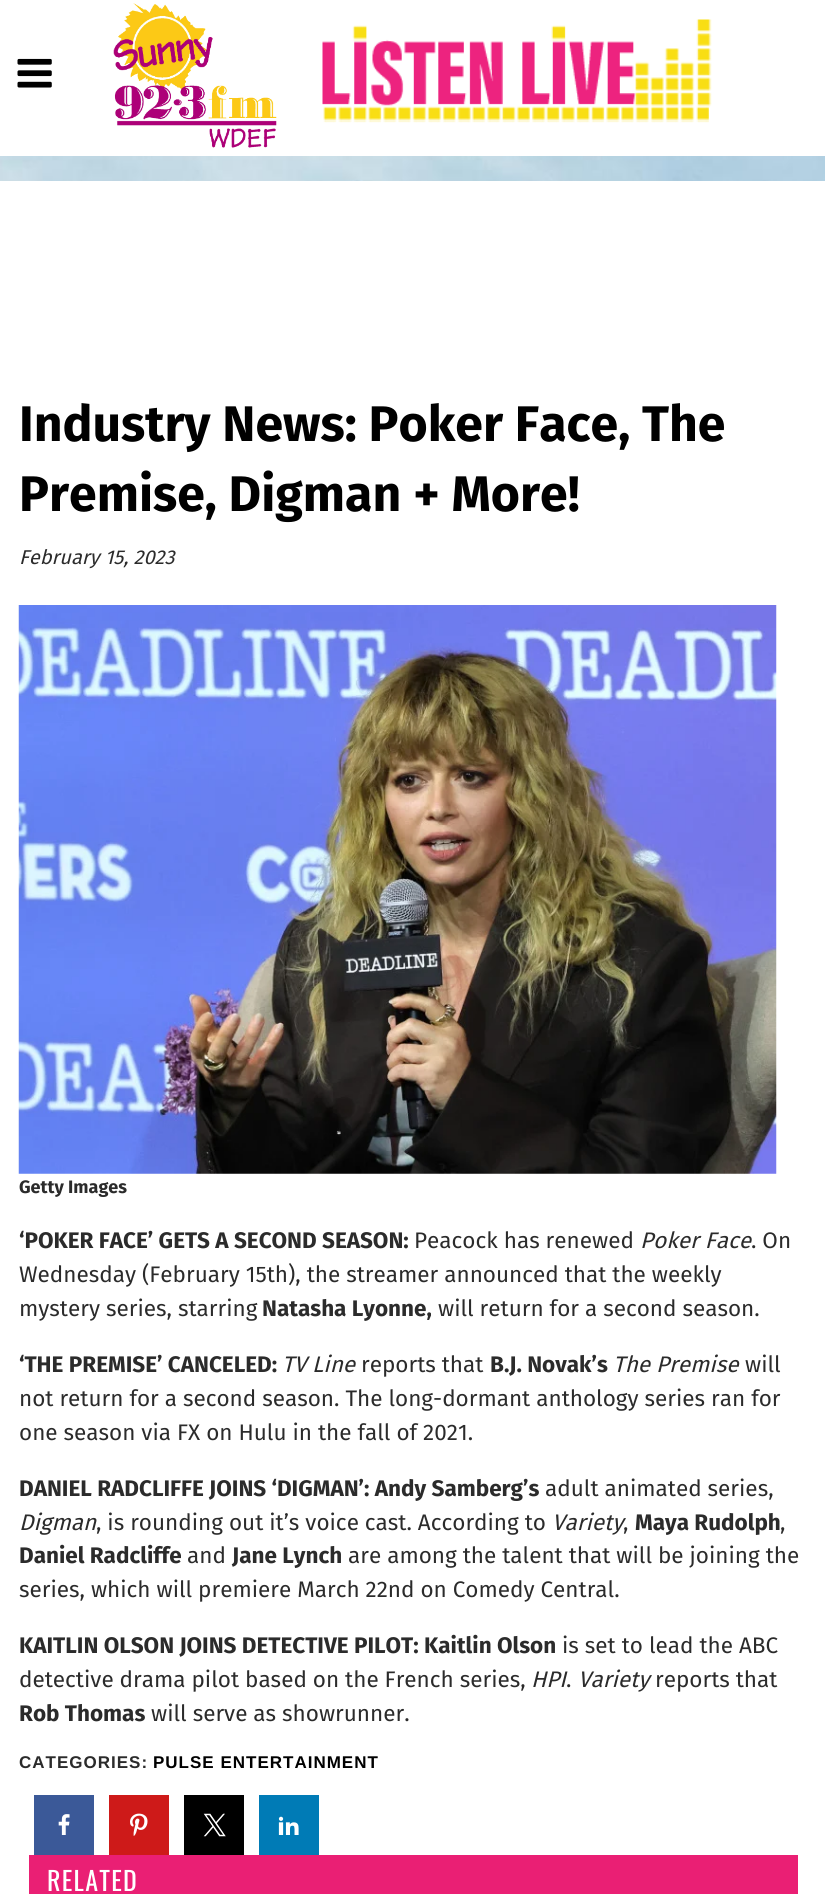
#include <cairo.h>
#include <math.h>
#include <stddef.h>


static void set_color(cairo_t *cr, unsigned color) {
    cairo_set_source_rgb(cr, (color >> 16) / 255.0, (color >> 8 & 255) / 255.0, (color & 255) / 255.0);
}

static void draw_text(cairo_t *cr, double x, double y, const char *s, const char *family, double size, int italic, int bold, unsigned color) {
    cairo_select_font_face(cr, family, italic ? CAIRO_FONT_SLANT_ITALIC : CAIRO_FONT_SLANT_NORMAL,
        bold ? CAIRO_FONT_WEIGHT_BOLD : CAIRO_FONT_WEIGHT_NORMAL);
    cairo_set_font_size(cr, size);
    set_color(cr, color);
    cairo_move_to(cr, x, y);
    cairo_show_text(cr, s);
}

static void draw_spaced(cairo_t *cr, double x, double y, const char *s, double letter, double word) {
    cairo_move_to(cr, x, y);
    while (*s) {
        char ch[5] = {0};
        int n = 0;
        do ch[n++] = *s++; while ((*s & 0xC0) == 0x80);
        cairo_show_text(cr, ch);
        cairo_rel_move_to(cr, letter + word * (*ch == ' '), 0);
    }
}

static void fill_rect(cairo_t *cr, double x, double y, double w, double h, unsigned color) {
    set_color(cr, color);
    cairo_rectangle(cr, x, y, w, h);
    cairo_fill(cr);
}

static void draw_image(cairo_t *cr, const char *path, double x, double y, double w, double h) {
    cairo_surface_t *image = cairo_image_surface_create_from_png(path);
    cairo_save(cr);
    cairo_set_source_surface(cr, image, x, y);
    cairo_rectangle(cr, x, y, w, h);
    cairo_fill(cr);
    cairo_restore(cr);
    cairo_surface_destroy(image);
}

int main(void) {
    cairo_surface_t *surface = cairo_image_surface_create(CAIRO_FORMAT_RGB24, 825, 1894);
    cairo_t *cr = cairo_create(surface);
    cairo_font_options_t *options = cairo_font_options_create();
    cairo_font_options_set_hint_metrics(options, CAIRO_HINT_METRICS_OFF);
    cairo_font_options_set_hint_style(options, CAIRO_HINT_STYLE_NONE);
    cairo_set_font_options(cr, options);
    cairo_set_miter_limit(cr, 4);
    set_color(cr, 0xFFFFFF);
    cairo_paint(cr);
    draw_image(cr, "assets/img1.png", 17, 58, 35, 30);
    draw_image(cr, "assets/img2.png", 113, 3, 164, 145);
    draw_image(cr, "assets/img3.png", 322, 19, 390, 104);
    draw_image(cr, "assets/img4.png", 0, 156, 825, 25);
    draw_text(cr, 19, 441, "Industry News: Poker Face, The", "Fira Sans", 50, 0, 1, 0x000000);
    draw_text(cr, 19, 511, "Premise, Digman + More!", "Fira Sans", 50, 0, 1, 0x000000);
    draw_text(cr, 19, 564, "February 15, 2023", "Fira Sans", 20, 1, 0, 0x2B2B2B);
    draw_image(cr, "assets/img5.png", 18, 605, 759, 569);
    draw_text(cr, 19, 1193, "Getty Images", "Fira Sans", 18, 0, 1, 0x2B2B2B);
    draw_text(cr, 19, 1248, "‘POKER FACE’ GETS A SECOND SEASON:", "Fira Sans", 22.5, 0, 1, 0x2B2B2B);
    draw_text(cr, 414, 1248, "Peacock has renewed", "Fira Sans", 22.5, 0, 0, 0x2B2B2B);
    draw_text(cr, 640, 1248, "Poker Face", "Fira Sans", 22.5, 1, 0, 0x2B2B2B);
    draw_text(cr, 751, 1248, ". On", "Fira Sans", 22.5, 0, 0, 0x2B2B2B);
    draw_text(cr, 19, 1282, "Wednesday (February 15th), the streamer announced that the weekly", "Fira Sans", 22.5, 0, 0, 0x2B2B2B);
    draw_text(cr, 19, 1316, "mystery series, starring", "Fira Sans", 22.5, 0, 0, 0x2B2B2B);
    draw_text(cr, 262, 1316, "Natasha Lyonne,", "Fira Sans", 22.5, 0, 1, 0x2B2B2B);
    draw_text(cr, 438, 1316, "will return for a second season.", "Fira Sans", 22.5, 0, 0, 0x2B2B2B);
    draw_text(cr, 19, 1372, "‘THE PREMISE’ CANCELED:", "Fira Sans", 22.5, 0, 1, 0x2B2B2B);
    draw_text(cr, 282, 1372, "TV Line", "Fira Sans", 22.5, 1, 0, 0x2B2B2B);
    draw_text(cr, 361, 1372, "reports that", "Fira Sans", 22.5, 0, 0, 0x2B2B2B);
    draw_text(cr, 490, 1372, "B.J. Novak’s", "Fira Sans", 22.5, 0, 1, 0x2B2B2B);
    draw_text(cr, 613, 1372, "The Premise", "Fira Sans", 22.5, 1, 0, 0x2B2B2B);
    draw_text(cr, 745, 1372, "will", "Fira Sans", 22.5, 0, 0, 0x2B2B2B);
    draw_text(cr, 19, 1406, "not return for a second season. The long-dormant anthology series ran for", "Fira Sans", 22.5, 0, 0, 0x2B2B2B);
    draw_text(cr, 19, 1440, "one season via FX on Hulu in the fall of 2021.", "Fira Sans", 22.5, 0, 0, 0x2B2B2B);
    draw_text(cr, 19, 1496, "DANIEL RADCLIFFE JOINS ‘DIGMAN’: Andy Samberg’s", "Fira Sans", 22.5, 0, 1, 0x2B2B2B);
    draw_text(cr, 545, 1496, "adult animated series,", "Fira Sans", 22.5, 0, 0, 0x2B2B2B);
    draw_text(cr, 19, 1530, "Digman", "Fira Sans", 22.5, 1, 0, 0x2B2B2B);
    draw_text(cr, 96, 1530, ", is rounding out it’s voice cast. According to", "Fira Sans", 22.5, 0, 0, 0x2B2B2B);
    draw_text(cr, 552, 1530, "Variety", "Fira Sans", 22.5, 1, 0, 0x2B2B2B);
    draw_text(cr, 635, 1530, "Maya Rudolph", "Fira Sans", 22.5, 0, 1, 0x2B2B2B);
    draw_text(cr, 623, 1530, ",", "Fira Sans", 22.5, 0, 0, 0x2B2B2B);
    draw_text(cr, 780, 1530, ",", "Fira Sans", 22.5, 0, 0, 0x2B2B2B);
    draw_text(cr, 19, 1563, "Daniel Radcliffe", "Fira Sans", 22.5, 0, 1, 0x2B2B2B);
    draw_text(cr, 187, 1563, "and", "Fira Sans", 22.5, 0, 0, 0x2B2B2B);
    draw_text(cr, 232, 1563, "Jane Lynch", "Fira Sans", 22.5, 0, 1, 0x2B2B2B);
    draw_text(cr, 348, 1563, "are among the talent that will be joining the", "Fira Sans", 22.5, 0, 0, 0x2B2B2B);
    draw_text(cr, 19, 1597, "series, which will premiere March 22nd on Comedy Central.", "Fira Sans", 22.5, 0, 0, 0x2B2B2B);
    draw_text(cr, 19, 1653, "KAITLIN OLSON JOINS DETECTIVE PILOT: Kaitlin Olson", "Fira Sans", 22.5, 0, 1, 0x2B2B2B);
    draw_text(cr, 562, 1653, "is set to lead the ABC", "Fira Sans", 22.5, 0, 0, 0x2B2B2B);
    draw_text(cr, 19, 1687, "detective drama pilot based on the French series,", "Fira Sans", 22.5, 0, 0, 0x2B2B2B);
    draw_text(cr, 531, 1687, "HPI", "Fira Sans", 22.5, 1, 0, 0x2B2B2B);
    draw_text(cr, 578, 1687, "Variety", "Fira Sans", 22.5, 1, 0, 0x2B2B2B);
    draw_text(cr, 655, 1687, "reports that", "Fira Sans", 22.5, 0, 0, 0x2B2B2B);
    draw_text(cr, 566, 1687, ".", "Fira Sans", 22.5, 0, 0, 0x2B2B2B);
    draw_text(cr, 19, 1721, "Rob Thomas", "Fira Sans", 22.5, 0, 1, 0x2B2B2B);
    draw_text(cr, 151, 1721, "will serve as showrunner.", "Fira Sans", 22.5, 0, 0, 0x2B2B2B);
    cairo_select_font_face(cr, "Liberation Sans", CAIRO_FONT_SLANT_NORMAL, CAIRO_FONT_WEIGHT_BOLD);
    cairo_set_font_size(cr, 17);
    draw_spaced(cr, 19, 1768, "CATEGORIES:", 1, 0);
    set_color(cr, 0x000000);
    draw_spaced(cr, 153, 1768, "PULSE ENTERTAINMENT", 1, 0);
    fill_rect(cr, 34, 1795, 60, 60, 0x3B5998);
    draw_image(cr, "assets/img6.png", 58, 1814, 12, 21);
    fill_rect(cr, 109, 1795, 60, 60, 0xCE1A19);
    draw_image(cr, "assets/img7.png", 130, 1813, 18, 23);
    fill_rect(cr, 184, 1795, 60, 60, 0x000000);
    draw_image(cr, "assets/img8.png", 203, 1813, 23, 24);
    fill_rect(cr, 259, 1795, 60, 60, 0x007BB6);
    draw_image(cr, "assets/img9.png", 278, 1816, 21, 19);
    fill_rect(cr, 29, 1855, 769, 39, 0xEA1F74);
    cairo_select_font_face(cr, "Oswald", CAIRO_FONT_SLANT_NORMAL, CAIRO_FONT_WEIGHT_NORMAL);
    cairo_set_font_size(cr, 26);
    set_color(cr, 0xFFFFFF);
    draw_spaced(cr, 47, 1891, "RELATED", 1.25, 0);
    cairo_surface_write_to_png(surface, "output.png");
    cairo_font_options_destroy(options);
    cairo_destroy(cr);
    cairo_surface_destroy(surface);
    return 0;
}
